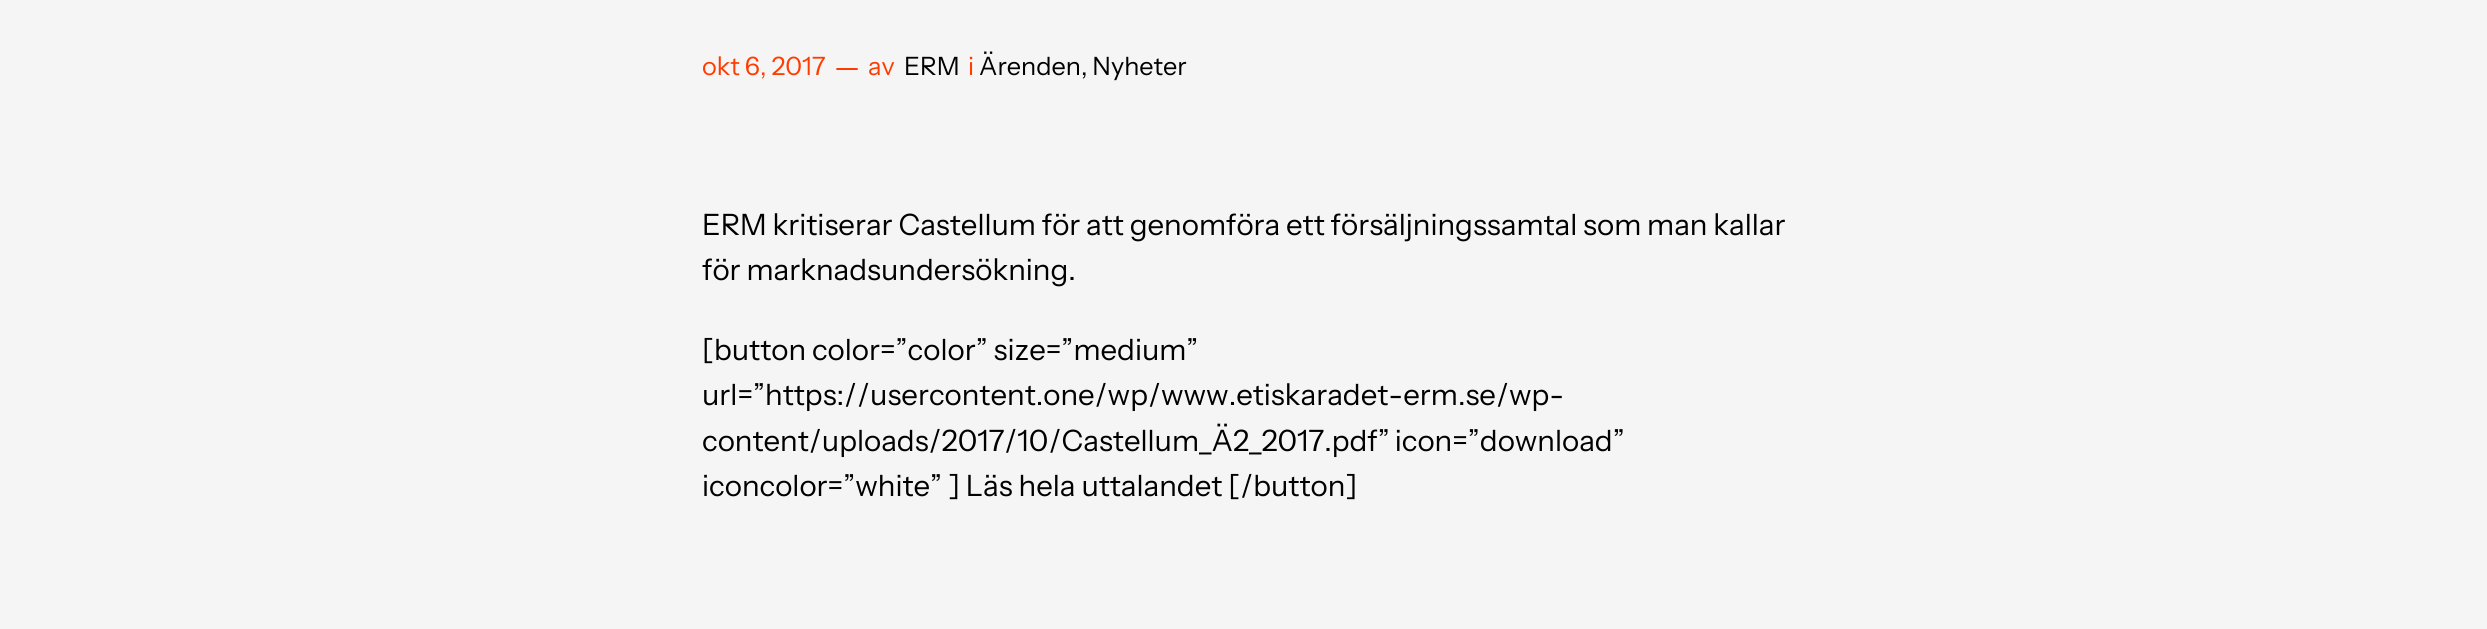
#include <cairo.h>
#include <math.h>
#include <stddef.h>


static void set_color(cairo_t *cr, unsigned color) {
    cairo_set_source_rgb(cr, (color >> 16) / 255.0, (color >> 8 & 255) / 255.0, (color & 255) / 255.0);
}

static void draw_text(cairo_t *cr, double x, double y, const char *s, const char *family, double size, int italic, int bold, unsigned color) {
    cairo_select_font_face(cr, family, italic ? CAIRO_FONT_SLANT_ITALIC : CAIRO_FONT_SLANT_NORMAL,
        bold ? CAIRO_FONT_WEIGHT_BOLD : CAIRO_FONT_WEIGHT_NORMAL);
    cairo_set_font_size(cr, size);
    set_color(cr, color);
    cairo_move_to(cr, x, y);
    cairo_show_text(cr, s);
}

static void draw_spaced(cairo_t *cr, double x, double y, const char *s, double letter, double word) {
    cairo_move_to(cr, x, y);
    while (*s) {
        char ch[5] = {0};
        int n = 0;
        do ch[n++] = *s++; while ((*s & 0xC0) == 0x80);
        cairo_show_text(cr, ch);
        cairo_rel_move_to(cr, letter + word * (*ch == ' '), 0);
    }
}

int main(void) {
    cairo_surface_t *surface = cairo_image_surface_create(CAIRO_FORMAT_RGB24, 2487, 629);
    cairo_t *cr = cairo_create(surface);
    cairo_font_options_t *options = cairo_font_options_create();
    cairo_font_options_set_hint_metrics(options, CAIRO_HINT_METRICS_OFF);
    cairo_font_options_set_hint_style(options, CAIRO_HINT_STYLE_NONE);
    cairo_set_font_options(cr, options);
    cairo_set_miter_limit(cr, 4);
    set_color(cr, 0xF5F5F5);
    cairo_paint(cr);
    draw_text(cr, 702, 75, "okt 6, 2017", "Instrument Sans", 25.25, 0, 0, 0xFF3C00);
    draw_text(cr, 834, 77, "—", "Instrument Sans", 29.4, 0, 0, 0xFF3C00);
    draw_text(cr, 868, 75, "av", "Instrument Sans", 25.25, 0, 0, 0xFF3C00);
    draw_text(cr, 904, 75, "ERM", "Instrument Sans", 25.25, 0, 0, 0x000000);
    draw_text(cr, 968, 75, "i", "Instrument Sans", 25.25, 0, 0, 0xFF3C00);
    draw_text(cr, 979, 75, "Ärenden, Nyheter", "Instrument Sans", 25.25, 0, 0, 0x000000);
    cairo_set_font_size(cr, 29.4);
    draw_spaced(cr, 702, 235, "ERM kritiserar Castellum för att genomföra ett försäljningssamtal som man kallar", 0, -0.1);
    draw_text(cr, 702, 280, "för marknadsundersökning.", "Instrument Sans", 29.4, 0, 0, 0x000000);
    draw_text(cr, 702, 360, "[button color=”color” size=”medium”", "Instrument Sans", 29.4, 0, 0, 0x000000);
    draw_text(cr, 702, 405, "url=”https://usercontent.one/wp/www.etiskaradet-erm.se/wp-", "Instrument Sans", 29.4, 0, 0, 0x000000);
    draw_spaced(cr, 702, 451, "content/uploads/2017/10/Castellum_Ä2_2017.pdf” icon=”download”", 0, -1);
    draw_text(cr, 702, 496, "iconcolor=”white” ] Läs hela uttalandet [/button]", "Instrument Sans", 29.4, 0, 0, 0x000000);
    cairo_surface_write_to_png(surface, "output.png");
    cairo_font_options_destroy(options);
    cairo_destroy(cr);
    cairo_surface_destroy(surface);
    return 0;
}
